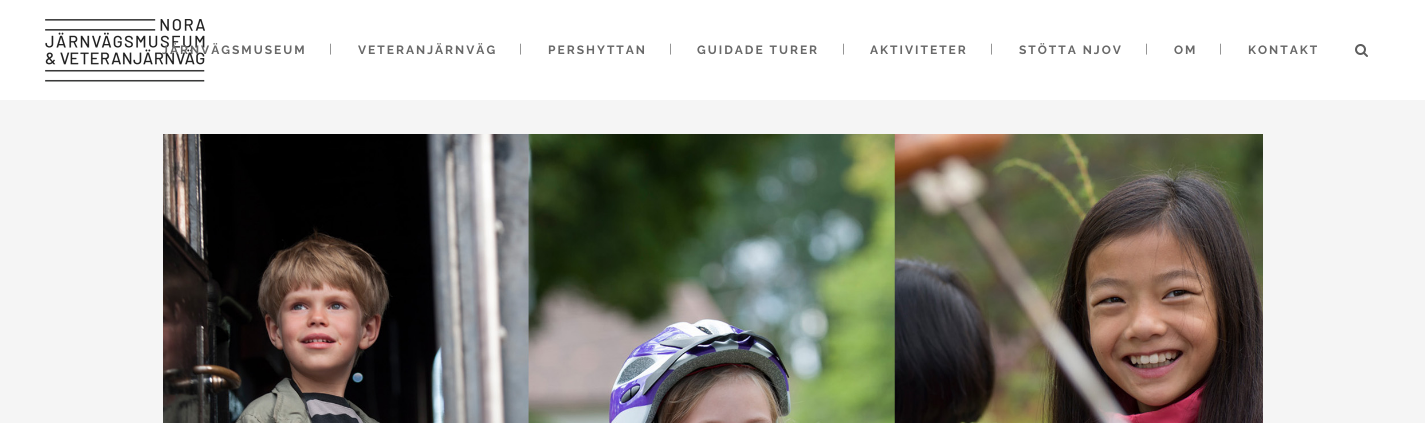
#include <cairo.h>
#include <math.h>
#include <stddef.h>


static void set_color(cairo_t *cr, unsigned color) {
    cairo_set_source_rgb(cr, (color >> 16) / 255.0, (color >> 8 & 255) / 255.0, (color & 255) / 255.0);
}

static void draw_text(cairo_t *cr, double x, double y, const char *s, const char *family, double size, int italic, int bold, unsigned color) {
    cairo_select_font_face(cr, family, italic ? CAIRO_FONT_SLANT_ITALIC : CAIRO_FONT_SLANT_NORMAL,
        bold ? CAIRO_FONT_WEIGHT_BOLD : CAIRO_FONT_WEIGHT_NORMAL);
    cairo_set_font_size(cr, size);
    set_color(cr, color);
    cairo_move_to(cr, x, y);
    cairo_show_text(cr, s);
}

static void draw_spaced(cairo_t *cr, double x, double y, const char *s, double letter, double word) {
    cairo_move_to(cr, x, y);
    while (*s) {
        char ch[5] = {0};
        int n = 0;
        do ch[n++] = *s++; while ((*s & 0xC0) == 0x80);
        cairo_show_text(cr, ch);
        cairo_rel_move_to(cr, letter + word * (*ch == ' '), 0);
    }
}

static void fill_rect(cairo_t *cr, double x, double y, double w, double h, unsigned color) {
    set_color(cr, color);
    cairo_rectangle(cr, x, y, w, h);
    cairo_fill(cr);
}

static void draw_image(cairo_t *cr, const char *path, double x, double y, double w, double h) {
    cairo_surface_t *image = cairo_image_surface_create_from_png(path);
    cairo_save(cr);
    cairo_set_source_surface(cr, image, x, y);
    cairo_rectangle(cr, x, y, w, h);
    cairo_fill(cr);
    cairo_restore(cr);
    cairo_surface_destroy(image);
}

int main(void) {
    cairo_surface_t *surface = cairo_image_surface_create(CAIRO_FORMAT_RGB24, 1425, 423);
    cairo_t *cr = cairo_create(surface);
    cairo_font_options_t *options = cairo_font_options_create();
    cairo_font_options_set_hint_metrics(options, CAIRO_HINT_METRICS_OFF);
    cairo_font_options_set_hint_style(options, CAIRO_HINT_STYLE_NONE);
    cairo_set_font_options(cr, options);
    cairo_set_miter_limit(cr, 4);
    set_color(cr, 0xF5F5F5);
    cairo_paint(cr);
    fill_rect(cr, 0, 0, 1425, 100, 0xFFFFFF);
    draw_image(cr, "assets/img1.png", 45, 19, 160, 63);
    cairo_select_font_face(cr, "Raleway", CAIRO_FONT_SLANT_NORMAL, CAIRO_FONT_WEIGHT_BOLD);
    cairo_set_font_size(cr, 12);
    set_color(cr, 0x696969);
    draw_spaced(cr, 162, 54, "JÄRNVÄGSMUSEUM", 2, 0);
    draw_text(cr, 329, 53, "|", "Raleway", 12, 0, 0, 0x696969);
    cairo_select_font_face(cr, "Raleway", CAIRO_FONT_SLANT_NORMAL, CAIRO_FONT_WEIGHT_BOLD);
    draw_spaced(cr, 358, 54, "VETERANJÄRNVÄG", 2, 0);
    draw_text(cr, 519, 53, "|", "Raleway", 12, 0, 0, 0x696969);
    cairo_select_font_face(cr, "Raleway", CAIRO_FONT_SLANT_NORMAL, CAIRO_FONT_WEIGHT_BOLD);
    draw_spaced(cr, 548, 54, "PERSHYTTAN", 2, 0);
    draw_text(cr, 669, 53, "|", "Raleway", 12, 0, 0, 0x696969);
    cairo_select_font_face(cr, "Raleway", CAIRO_FONT_SLANT_NORMAL, CAIRO_FONT_WEIGHT_BOLD);
    draw_spaced(cr, 697, 54, "GUIDADE TURER", 2, 0);
    draw_text(cr, 842, 53, "|", "Raleway", 12, 0, 0, 0x696969);
    cairo_select_font_face(cr, "Raleway", CAIRO_FONT_SLANT_NORMAL, CAIRO_FONT_WEIGHT_BOLD);
    draw_spaced(cr, 870, 54, "AKTIVITETER", 2, 0);
    draw_text(cr, 990, 53, "|", "Raleway", 12, 0, 0, 0x696969);
    cairo_select_font_face(cr, "Raleway", CAIRO_FONT_SLANT_NORMAL, CAIRO_FONT_WEIGHT_BOLD);
    draw_spaced(cr, 1019, 54, "STÖTTA NJOV", 2, 0);
    draw_text(cr, 1145, 53, "|", "Raleway", 12, 0, 0, 0x696969);
    cairo_select_font_face(cr, "Raleway", CAIRO_FONT_SLANT_NORMAL, CAIRO_FONT_WEIGHT_BOLD);
    draw_spaced(cr, 1174, 54, "OM", 2, 0);
    draw_text(cr, 1219, 53, "|", "Raleway", 12, 0, 0, 0x696969);
    cairo_select_font_face(cr, "Raleway", CAIRO_FONT_SLANT_NORMAL, CAIRO_FONT_WEIGHT_BOLD);
    draw_spaced(cr, 1248, 54, "KONTAKT", 2, 0);
    draw_image(cr, "assets/img2.png", 1355, 44, 13, 13);
    draw_image(cr, "assets/img3.png", 163, 134, 1100, 289);
    cairo_surface_write_to_png(surface, "output.png");
    cairo_font_options_destroy(options);
    cairo_destroy(cr);
    cairo_surface_destroy(surface);
    return 0;
}
